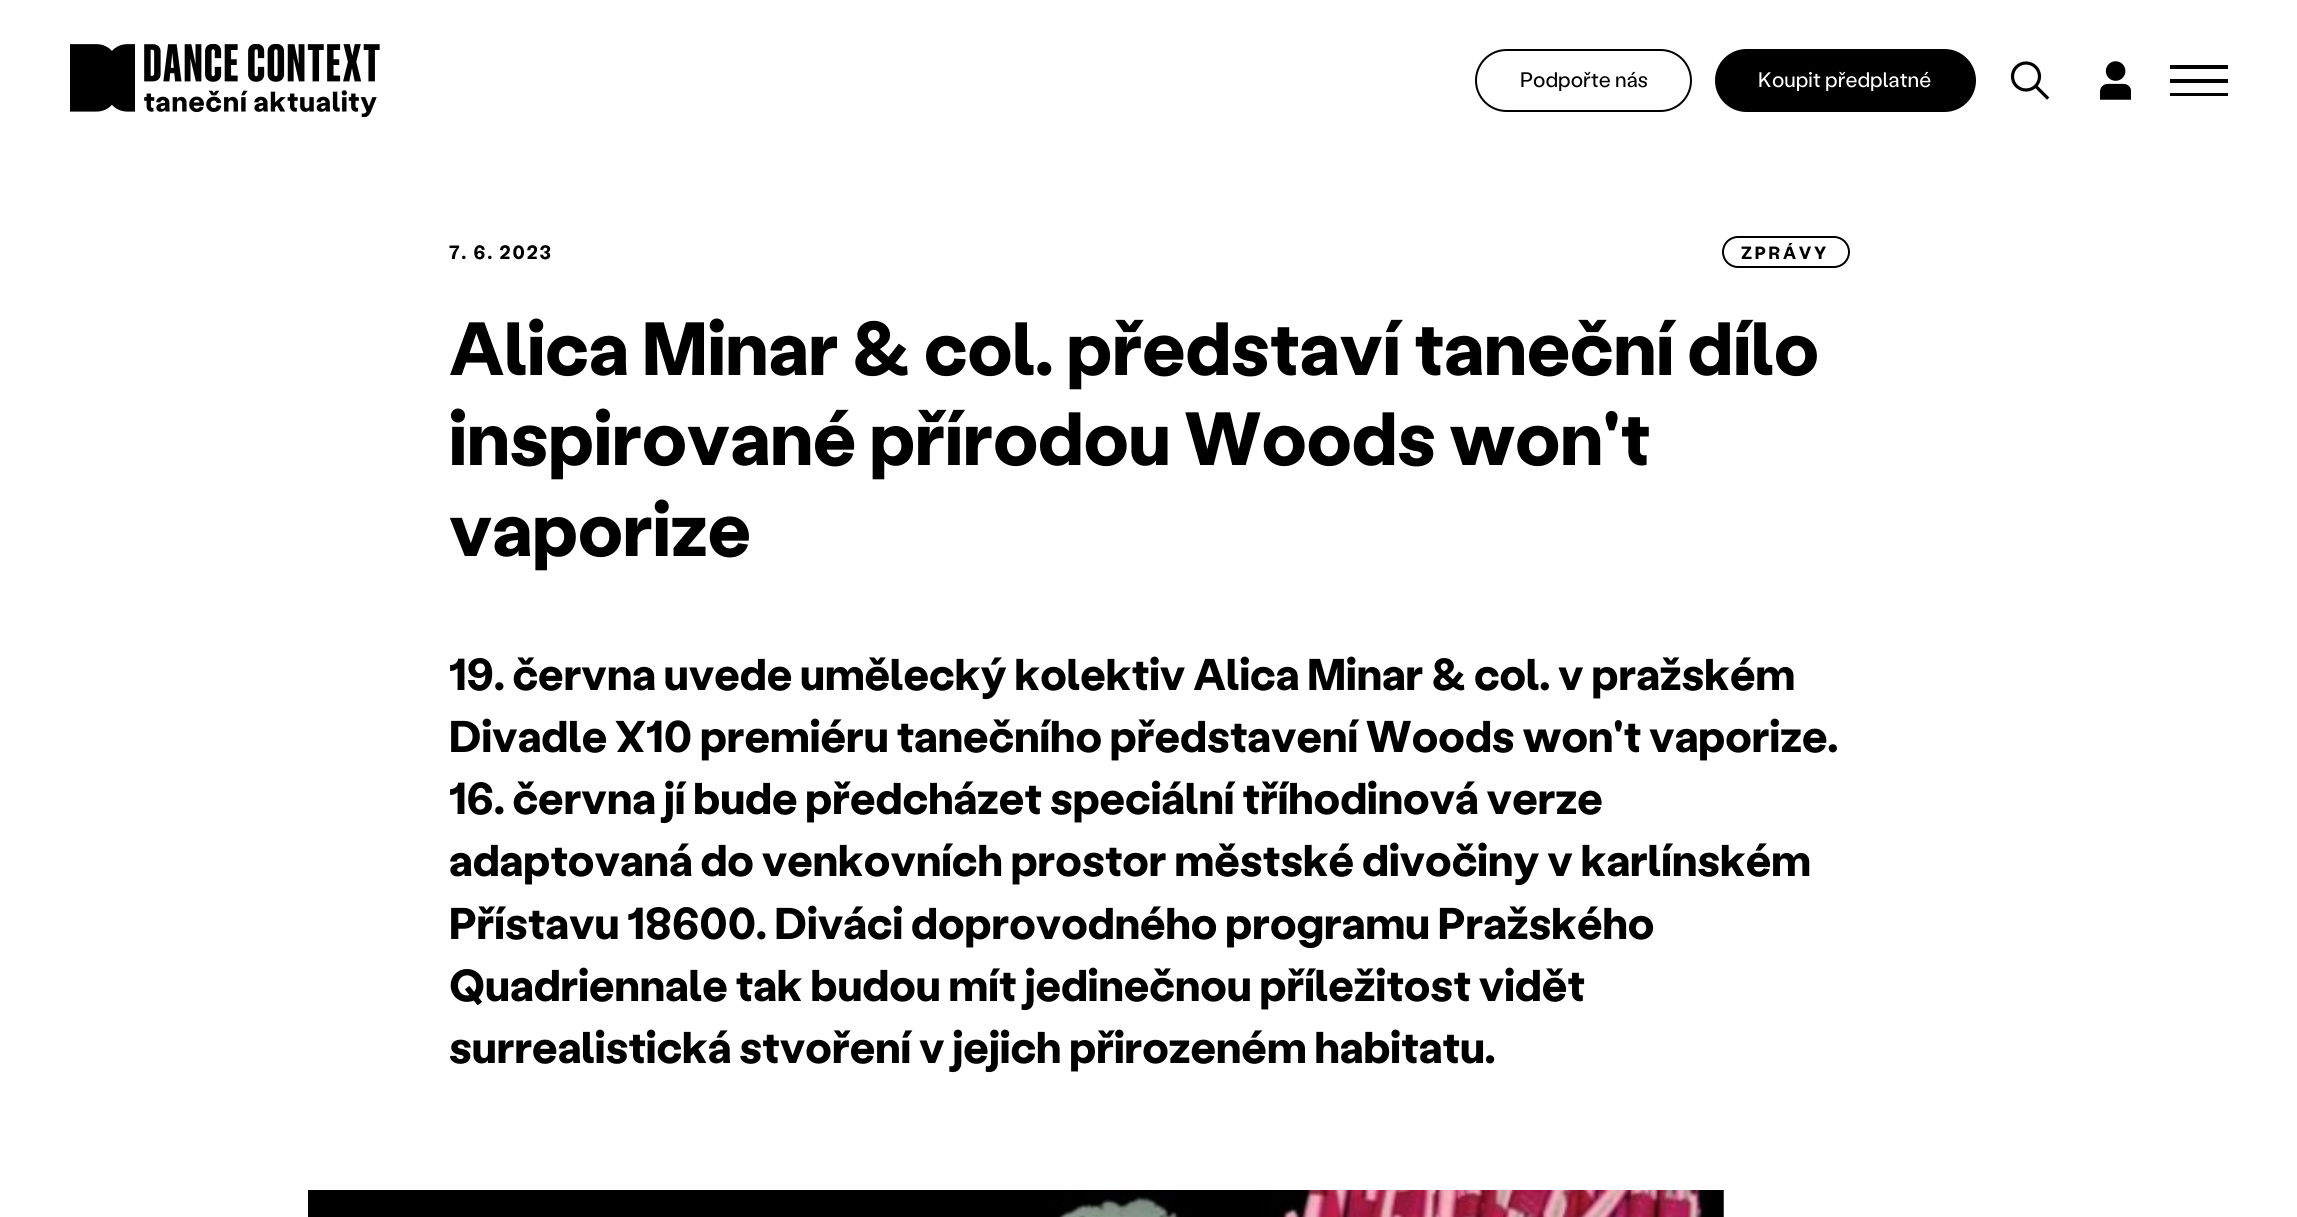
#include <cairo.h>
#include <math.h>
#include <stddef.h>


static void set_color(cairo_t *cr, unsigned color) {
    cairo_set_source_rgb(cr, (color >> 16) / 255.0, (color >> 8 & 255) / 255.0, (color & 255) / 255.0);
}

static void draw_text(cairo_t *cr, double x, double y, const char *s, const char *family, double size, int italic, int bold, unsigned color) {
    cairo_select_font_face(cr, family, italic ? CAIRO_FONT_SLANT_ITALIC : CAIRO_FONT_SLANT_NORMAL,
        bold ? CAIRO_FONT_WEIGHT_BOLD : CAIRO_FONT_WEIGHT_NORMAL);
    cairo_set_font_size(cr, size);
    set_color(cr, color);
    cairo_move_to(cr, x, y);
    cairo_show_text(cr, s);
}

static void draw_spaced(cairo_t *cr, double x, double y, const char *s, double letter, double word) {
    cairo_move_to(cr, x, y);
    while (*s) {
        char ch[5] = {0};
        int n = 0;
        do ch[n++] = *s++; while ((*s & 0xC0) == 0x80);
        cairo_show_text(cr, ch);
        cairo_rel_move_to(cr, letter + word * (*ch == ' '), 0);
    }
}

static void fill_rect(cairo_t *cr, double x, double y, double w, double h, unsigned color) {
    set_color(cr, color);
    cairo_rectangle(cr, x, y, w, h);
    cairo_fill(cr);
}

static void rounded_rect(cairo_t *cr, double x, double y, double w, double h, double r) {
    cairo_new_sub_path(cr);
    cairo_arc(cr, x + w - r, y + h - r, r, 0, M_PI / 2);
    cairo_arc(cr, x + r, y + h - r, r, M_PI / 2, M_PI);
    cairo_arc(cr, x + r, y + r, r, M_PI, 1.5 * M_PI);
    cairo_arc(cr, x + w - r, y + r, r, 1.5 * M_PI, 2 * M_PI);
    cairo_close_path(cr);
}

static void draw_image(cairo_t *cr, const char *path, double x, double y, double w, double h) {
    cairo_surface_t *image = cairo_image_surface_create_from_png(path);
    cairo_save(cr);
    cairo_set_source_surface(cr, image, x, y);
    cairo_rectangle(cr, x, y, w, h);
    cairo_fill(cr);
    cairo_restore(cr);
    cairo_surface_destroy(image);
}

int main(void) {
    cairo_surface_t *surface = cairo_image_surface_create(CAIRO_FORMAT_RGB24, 2297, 1217);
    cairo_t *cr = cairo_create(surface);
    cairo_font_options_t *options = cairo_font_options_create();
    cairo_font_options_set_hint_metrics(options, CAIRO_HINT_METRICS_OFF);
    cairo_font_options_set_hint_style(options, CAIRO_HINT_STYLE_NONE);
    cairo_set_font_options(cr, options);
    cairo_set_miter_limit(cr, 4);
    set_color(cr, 0xFFFFFF);
    cairo_paint(cr);
    draw_image(cr, "assets/img1.png", 70, 44, 310, 73);
    rounded_rect(cr, 1476, 50, 215, 61, 30.5);
    set_color(cr, 0x000000);
    cairo_stroke(cr);
    draw_text(cr, 1520, 87, "Podpořte nás", "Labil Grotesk", 21, 0, 0, 0x000000);
    rounded_rect(cr, 1716, 50, 259, 61, 30.5);
    cairo_fill_preserve(cr);
    cairo_stroke(cr);
    draw_text(cr, 1758, 87, "Koupit předplatné", "Labil Grotesk", 21, 0, 0, 0xFFFFFF);
    cairo_new_path(cr);
    cairo_arc(cr, 2026, 76.5, 13.5, 0, 2 * M_PI);
    set_color(cr, 0x000000);
    cairo_set_line_width(cr, 3.2);
    cairo_stroke(cr);
    cairo_new_path(cr);
    cairo_move_to(cr, 2037, 87.5);
    cairo_line_to(cr, 2047, 97.5);
    cairo_set_line_cap(cr, CAIRO_LINE_CAP_SQUARE);
    cairo_set_line_join(cr, CAIRO_LINE_JOIN_ROUND);
    cairo_stroke(cr);
    draw_image(cr, "assets/img2.png", 2100, 61, 31, 39);
    fill_rect(cr, 2170, 65, 58, 4, 0x000000);
    fill_rect(cr, 2170, 79, 58, 4, 0x000000);
    fill_rect(cr, 2170, 93, 58, 3, 0x000000);
    cairo_select_font_face(cr, "Labil Grotesk", CAIRO_FONT_SLANT_NORMAL, CAIRO_FONT_WEIGHT_BOLD);
    cairo_set_font_size(cr, 19.25);
    draw_spaced(cr, 449, 259, "7. 6. 2023", 2, 0);
    rounded_rect(cr, 1723, 237, 126, 30, 15);
    cairo_set_line_width(cr, 2);
    cairo_set_line_cap(cr, CAIRO_LINE_CAP_BUTT);
    cairo_set_line_join(cr, CAIRO_LINE_JOIN_MITER);
    cairo_stroke(cr);
    cairo_set_font_size(cr, 17.75);
    draw_spaced(cr, 1741, 259, "ZPRÁVY", 2.75, 0);
    draw_text(cr, 449, 375, "Alica Minar & col. představí taneční dílo", "Labil Grotesk", 75.25, 0, 1, 0x000000);
    draw_text(cr, 449, 465, "inspirované přírodou Woods won't", "Labil Grotesk", 75.25, 0, 1, 0x000000);
    draw_text(cr, 449, 556, "vaporize", "Labil Grotesk", 75.25, 0, 1, 0x000000);
    draw_text(cr, 449, 690, "19. června uvede umělecký kolektiv Alica Minar & col. v pražském", "Labil Grotesk", 44.45, 0, 1, 0x000000);
    draw_text(cr, 449, 752, "Divadle X10 premiéru tanečního představení Woods won't vaporize.", "Labil Grotesk", 44.45, 0, 1, 0x000000);
    draw_text(cr, 449, 814, "16. června jí bude předcházet speciální tříhodinová verze", "Labil Grotesk", 44.45, 0, 1, 0x000000);
    draw_text(cr, 449, 876, "adaptovaná do venkovních prostor městské divočiny v karlínském", "Labil Grotesk", 44.45, 0, 1, 0x000000);
    draw_text(cr, 449, 939, "Přístavu 18600. Diváci doprovodného programu Pražského", "Labil Grotesk", 44.45, 0, 1, 0x000000);
    draw_text(cr, 449, 1001, "Quadriennale tak budou mít jedinečnou příležitost vidět", "Labil Grotesk", 44.45, 0, 1, 0x000000);
    draw_text(cr, 449, 1063, "surrealistická stvoření v jejich přirozeném habitatu.", "Labil Grotesk", 44.45, 0, 1, 0x000000);
    draw_image(cr, "assets/img3.png", 308, 1190, 1416, 27);
    cairo_surface_write_to_png(surface, "output.png");
    cairo_font_options_destroy(options);
    cairo_destroy(cr);
    cairo_surface_destroy(surface);
    return 0;
}
